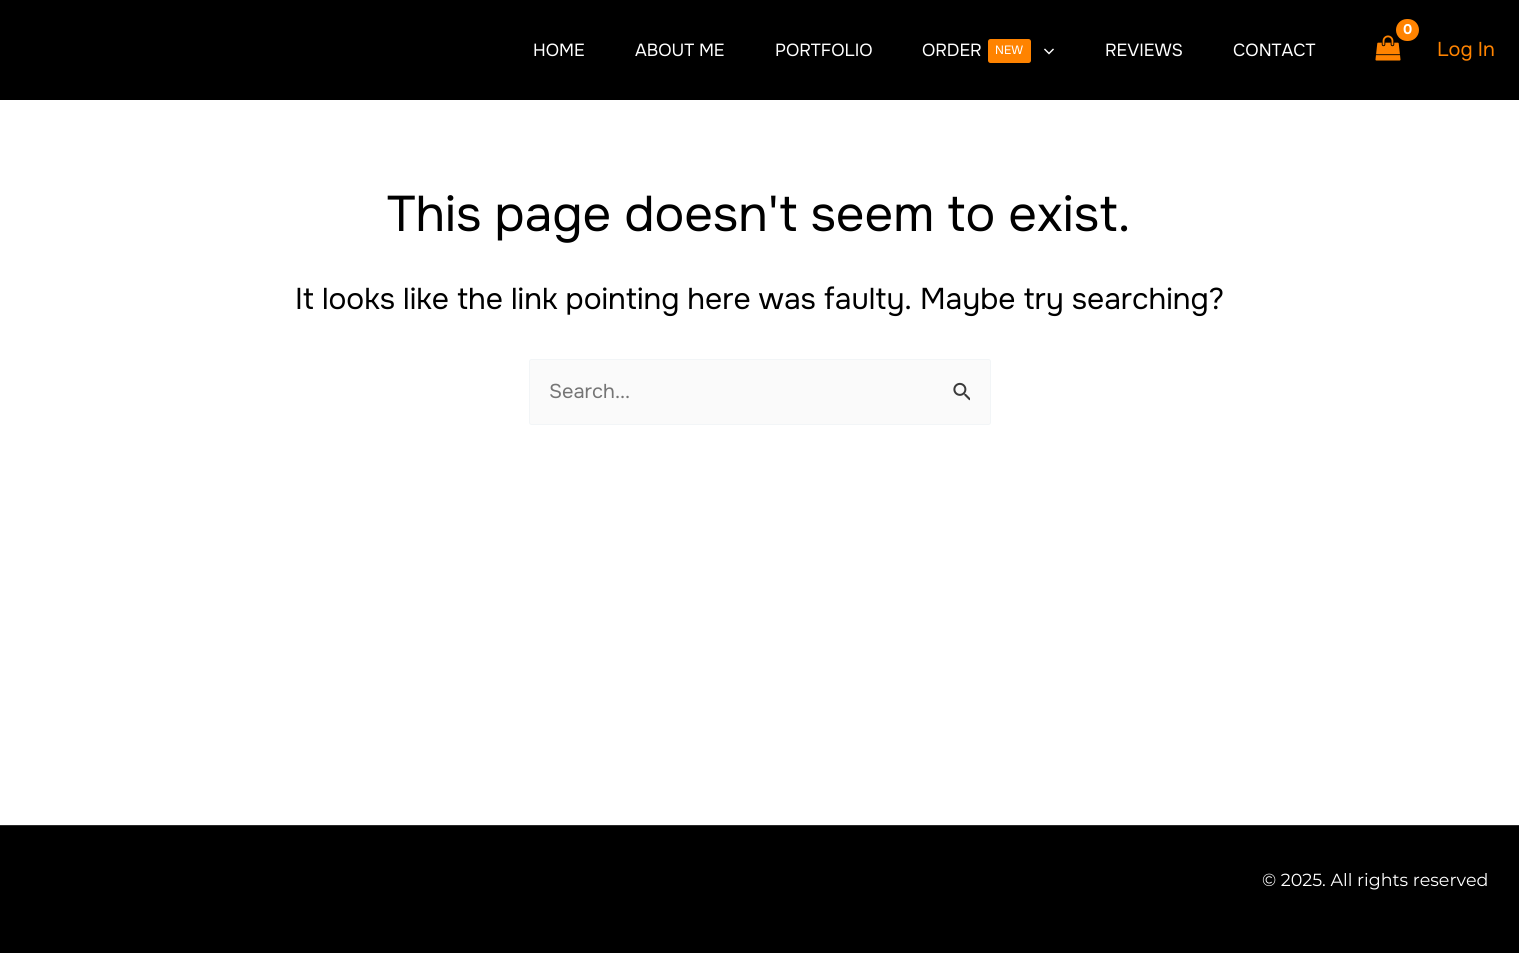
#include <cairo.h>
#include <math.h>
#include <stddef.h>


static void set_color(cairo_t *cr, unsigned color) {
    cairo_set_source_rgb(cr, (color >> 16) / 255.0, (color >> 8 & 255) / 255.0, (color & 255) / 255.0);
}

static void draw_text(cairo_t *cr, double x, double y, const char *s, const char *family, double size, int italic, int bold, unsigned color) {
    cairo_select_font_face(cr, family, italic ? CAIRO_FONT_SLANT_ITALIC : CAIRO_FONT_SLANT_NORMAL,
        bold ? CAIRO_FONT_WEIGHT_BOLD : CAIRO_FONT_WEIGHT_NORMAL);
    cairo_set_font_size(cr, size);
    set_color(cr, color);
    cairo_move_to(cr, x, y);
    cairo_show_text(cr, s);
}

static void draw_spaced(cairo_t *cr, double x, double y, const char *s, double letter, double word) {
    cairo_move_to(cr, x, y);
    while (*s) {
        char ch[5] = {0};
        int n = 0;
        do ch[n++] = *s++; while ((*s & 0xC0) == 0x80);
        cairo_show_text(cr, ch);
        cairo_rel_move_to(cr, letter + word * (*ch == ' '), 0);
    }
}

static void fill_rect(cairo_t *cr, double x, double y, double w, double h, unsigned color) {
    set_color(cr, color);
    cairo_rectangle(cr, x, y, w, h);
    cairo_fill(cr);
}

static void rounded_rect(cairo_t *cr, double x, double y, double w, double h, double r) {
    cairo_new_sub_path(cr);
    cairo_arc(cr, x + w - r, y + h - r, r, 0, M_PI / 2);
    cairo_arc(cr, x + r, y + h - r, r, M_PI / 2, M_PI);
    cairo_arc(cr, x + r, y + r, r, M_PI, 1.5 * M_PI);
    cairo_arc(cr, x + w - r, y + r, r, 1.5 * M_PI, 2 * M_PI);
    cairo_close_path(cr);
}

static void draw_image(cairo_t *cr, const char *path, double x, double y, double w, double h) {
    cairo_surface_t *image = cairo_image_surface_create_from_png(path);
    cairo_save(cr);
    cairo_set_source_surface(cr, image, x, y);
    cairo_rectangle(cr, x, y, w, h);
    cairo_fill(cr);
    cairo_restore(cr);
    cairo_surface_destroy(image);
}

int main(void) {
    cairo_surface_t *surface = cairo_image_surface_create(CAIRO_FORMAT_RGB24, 1519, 953);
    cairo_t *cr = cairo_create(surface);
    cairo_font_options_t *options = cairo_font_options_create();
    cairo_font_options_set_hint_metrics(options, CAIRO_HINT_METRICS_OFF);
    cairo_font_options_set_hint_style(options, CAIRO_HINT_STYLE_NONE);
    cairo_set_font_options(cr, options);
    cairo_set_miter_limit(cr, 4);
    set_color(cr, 0xFFFFFF);
    cairo_paint(cr);
    fill_rect(cr, 0, 0, 1519, 100, 0x000000);
    draw_image(cr, "assets/img1.png", 1375, 35, 26, 26);
    set_color(cr, 0xFF8300);
    rounded_rect(cr, 1396, 19, 23, 22, 11);
    cairo_fill(cr);
    cairo_select_font_face(cr, "Onest", CAIRO_FONT_SLANT_NORMAL, CAIRO_FONT_WEIGHT_BOLD);
    cairo_set_font_size(cr, 14);
    set_color(cr, 0xFFFFFF);
    draw_spaced(cr, 1403, 34, "0", -1, 0);
    draw_text(cr, 533, 56, "HOME", "Onest", 17.5, 0, 0, 0xFFFFFF);
    draw_text(cr, 635, 56, "ABOUT ME", "Onest", 17.5, 0, 0, 0xFFFFFF);
    draw_text(cr, 775, 56, "PORTFOLIO", "Onest", 17.5, 0, 0, 0xFFFFFF);
    draw_text(cr, 922, 56, "ORDER", "Onest", 17.5, 0, 0, 0xFFFFFF);
    set_color(cr, 0xFF8300);
    rounded_rect(cr, 988, 39, 43, 24, 2.5);
    cairo_fill(cr);
    draw_text(cr, 995, 54, "NEW", "Onest", 12, 0, 0, 0xFFFFFF);
    draw_image(cr, "assets/img2.png", 1044, 48, 10, 7);
    draw_text(cr, 1105, 56, "REVIEWS", "Onest", 17.5, 0, 0, 0xFFFFFF);
    draw_text(cr, 1233, 56, "CONTACT", "Onest", 17.5, 0, 0, 0xFFFFFF);
    draw_text(cr, 1437, 56, "Log In", "Onest", 20, 0, 0, 0xFF8300);
    cairo_set_font_size(cr, 50);
    set_color(cr, 0x000000);
    draw_spaced(cr, 387, 231, "This page doesn't seem to exist.", 0, -0.5);
    cairo_set_font_size(cr, 30);
    draw_spaced(cr, 295, 309, "It looks like the link pointing here was faulty. Maybe try searching?", 0, -0.1);
    set_color(cr, 0xFAFAFA);
    rounded_rect(cr, 529.5, 359.5, 461, 65, 2);
    cairo_fill_preserve(cr);
    set_color(cr, 0xF2F5F7);
    cairo_set_line_width(cr, 1);
    cairo_stroke(cr);
    draw_text(cr, 549, 398, "Search...", "Onest", 20, 0, 0, 0x757575);
    draw_image(cr, "assets/img3.png", 953, 382, 17, 19);
    fill_rect(cr, 0, 826, 1519, 127, 0x000000);
    fill_rect(cr, 0, 825, 1519, 1, 0x2A2A2A);
    draw_text(cr, 1262, 886, "© 2025. All rights reserved", "Montserrat", 17.5, 0, 0, 0xFFFFFF);
    cairo_surface_write_to_png(surface, "output.png");
    cairo_font_options_destroy(options);
    cairo_destroy(cr);
    cairo_surface_destroy(surface);
    return 0;
}
